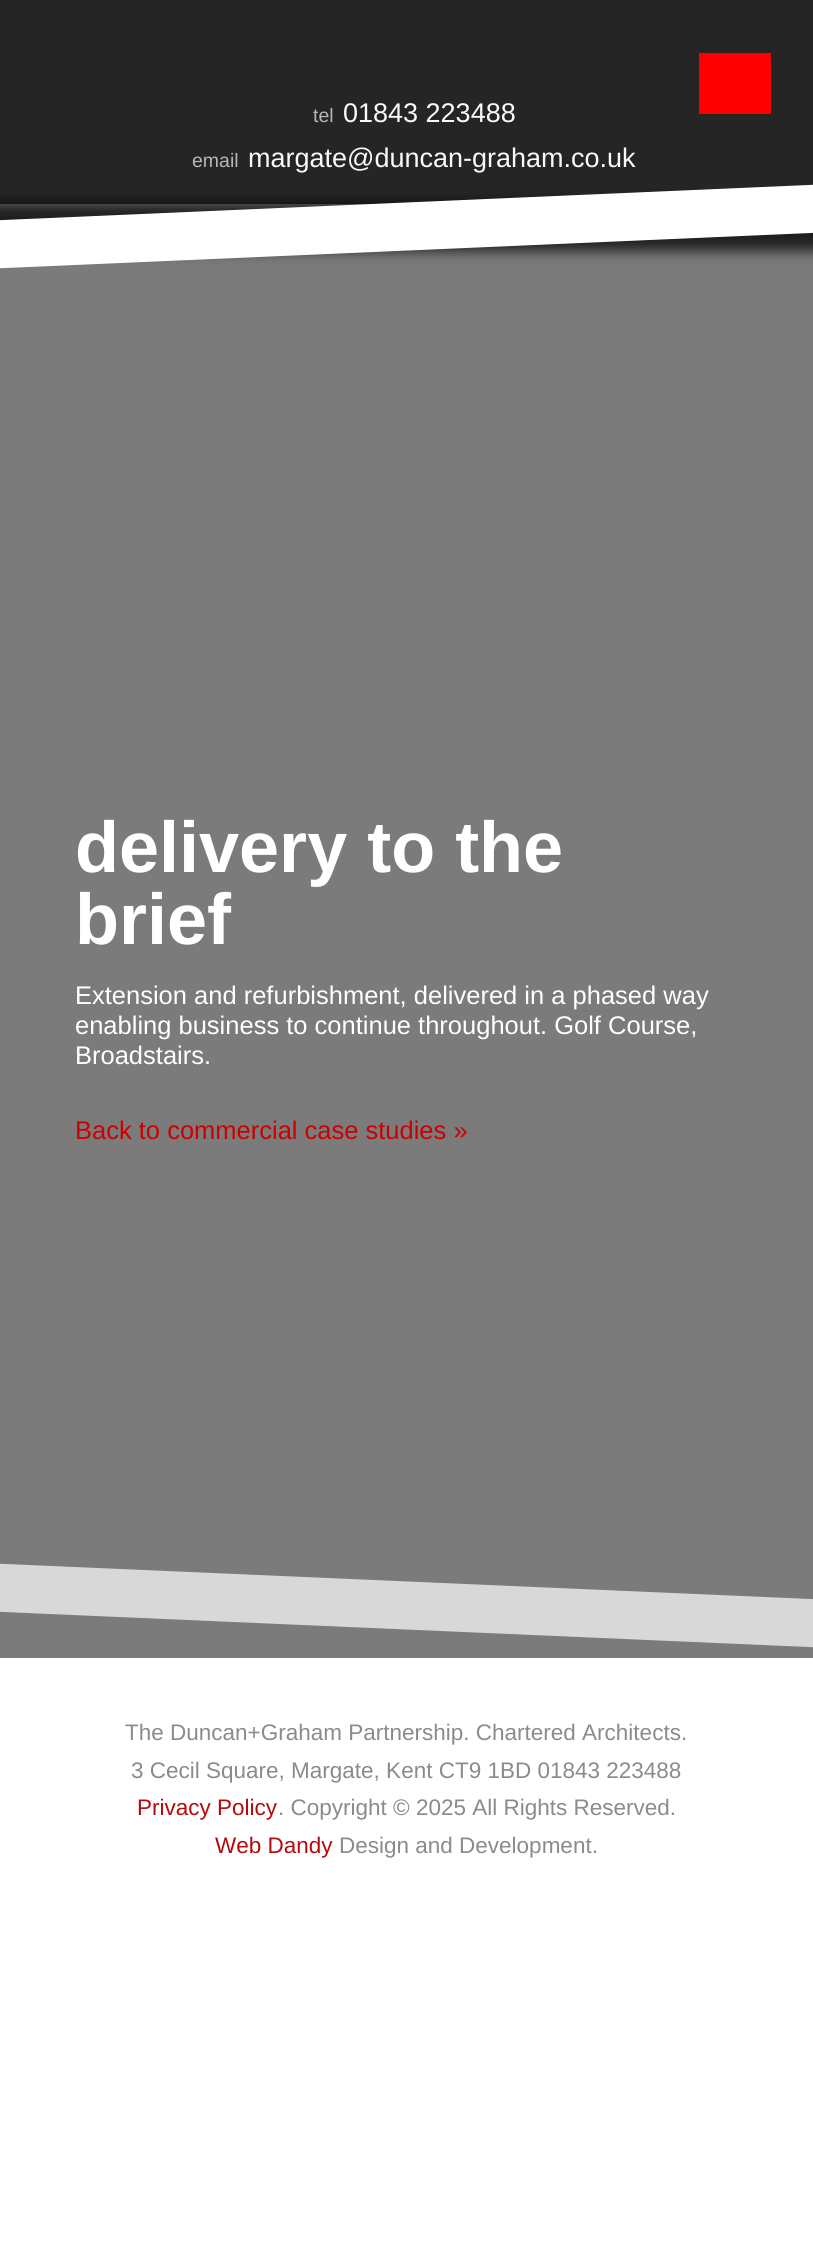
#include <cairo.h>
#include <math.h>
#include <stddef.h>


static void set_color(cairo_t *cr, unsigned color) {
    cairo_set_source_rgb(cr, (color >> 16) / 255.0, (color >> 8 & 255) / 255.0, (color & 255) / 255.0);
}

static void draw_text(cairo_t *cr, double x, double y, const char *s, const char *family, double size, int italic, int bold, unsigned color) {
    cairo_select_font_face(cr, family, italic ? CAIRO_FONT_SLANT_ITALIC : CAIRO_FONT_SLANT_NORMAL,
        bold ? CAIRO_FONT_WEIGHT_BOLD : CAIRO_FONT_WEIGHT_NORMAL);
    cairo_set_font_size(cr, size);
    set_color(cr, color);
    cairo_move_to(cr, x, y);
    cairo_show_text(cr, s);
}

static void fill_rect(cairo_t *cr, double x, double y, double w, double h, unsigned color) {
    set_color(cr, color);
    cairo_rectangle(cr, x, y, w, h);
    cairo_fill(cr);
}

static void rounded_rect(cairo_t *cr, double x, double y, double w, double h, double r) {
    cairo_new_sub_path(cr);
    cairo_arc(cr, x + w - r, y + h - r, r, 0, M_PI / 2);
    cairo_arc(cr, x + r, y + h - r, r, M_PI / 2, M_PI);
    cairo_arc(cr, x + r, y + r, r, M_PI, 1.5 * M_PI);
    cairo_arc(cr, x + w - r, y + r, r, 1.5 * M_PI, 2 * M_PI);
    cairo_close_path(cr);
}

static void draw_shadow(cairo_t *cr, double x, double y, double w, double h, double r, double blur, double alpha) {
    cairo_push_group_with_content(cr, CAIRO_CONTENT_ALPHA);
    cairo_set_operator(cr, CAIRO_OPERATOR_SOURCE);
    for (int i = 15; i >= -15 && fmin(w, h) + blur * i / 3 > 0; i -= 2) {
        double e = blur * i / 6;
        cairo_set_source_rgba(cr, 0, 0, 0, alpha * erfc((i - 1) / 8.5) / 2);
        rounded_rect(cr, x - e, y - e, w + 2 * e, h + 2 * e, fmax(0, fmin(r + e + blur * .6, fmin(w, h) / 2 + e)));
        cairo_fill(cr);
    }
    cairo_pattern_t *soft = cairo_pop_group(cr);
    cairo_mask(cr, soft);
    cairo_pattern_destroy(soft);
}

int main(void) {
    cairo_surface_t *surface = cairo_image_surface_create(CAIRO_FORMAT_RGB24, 813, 2246);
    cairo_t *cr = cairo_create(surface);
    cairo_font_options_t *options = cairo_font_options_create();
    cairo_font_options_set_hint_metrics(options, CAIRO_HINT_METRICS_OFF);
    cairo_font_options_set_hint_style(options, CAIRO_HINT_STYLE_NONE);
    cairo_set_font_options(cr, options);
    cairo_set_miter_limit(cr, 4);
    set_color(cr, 0xFFFFFF);
    cairo_paint(cr);
    fill_rect(cr, 0, 0, 813, 204, 0x252525);
    fill_rect(cr, 699, 53, 72, 61, 0xFF0000);
    draw_text(cr, 313, 122, "tel", "Liberation Sans", 19.5, 0, 0, 0xB7B5B5);
    draw_text(cr, 343, 122, "01843 223488", "Liberation Sans", 27, 0, 0, 0xFDF9F9);
    draw_text(cr, 192, 167, "email", "Liberation Sans", 19.5, 0, 0, 0xB7B5B5);
    draw_text(cr, 248, 167, "margate@duncan-graham.co.uk", "Liberation Sans", 27, 0, 0, 0xFDF9F9);
    fill_rect(cr, 0, 204, 813, 1454, 0x7B7B7B);
    set_color(cr, 0x000000);
    draw_shadow(cr, -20, 203, 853, 48, 0, 6.5, 0.75);
    set_color(cr, 0xFFFFFF);
    cairo_new_path(cr);
    cairo_move_to(cr, -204, 229);
    cairo_line_to(cr, 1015, 176);
    cairo_line_to(cr, 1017, 224);
    cairo_line_to(cr, -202, 277);
    cairo_close_path(cr);
    cairo_fill(cr);
    draw_text(cr, 75, 872, "delivery to the", "Liberation Sans", 72, 0, 1, 0xFFFFFF);
    draw_text(cr, 75, 944, "brief", "Liberation Sans", 72, 0, 1, 0xFFFFFF);
    draw_text(cr, 75, 1004, "Extension and refurbishment, delivered in a phased way", "Liberation Sans", 25.5, 0, 0, 0xFFFFFF);
    draw_text(cr, 75, 1034, "enabling business to continue throughout. Golf Course,", "Liberation Sans", 25.5, 0, 0, 0xFFFFFF);
    draw_text(cr, 75, 1064, "Broadstairs.", "Liberation Sans", 25.5, 0, 0, 0xFFFFFF);
    draw_text(cr, 75, 1139, "Back to commercial case studies »", "Liberation Sans", 25.5, 0, 0, 0xCC0000);
    set_color(cr, 0xD8D8D8);
    cairo_new_path(cr);
    cairo_move_to(cr, -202, 1555);
    cairo_line_to(cr, 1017, 1608);
    cairo_line_to(cr, 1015, 1656);
    cairo_line_to(cr, -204, 1603);
    cairo_close_path(cr);
    cairo_fill(cr);
    draw_text(cr, 125, 1740, "The Duncan+Graham Partnership. Chartered Architects.", "Liberation Sans", 22.5, 0, 0, 0x8C8A8A);
    draw_text(cr, 131, 1778, "3 Cecil Square, Margate, Kent CT9 1BD 01843 223488", "Liberation Sans", 22.5, 0, 0, 0x8C8A8A);
    draw_text(cr, 137, 1815, "Privacy Policy", "Liberation Sans", 22.5, 0, 0, 0xB50A0A);
    draw_text(cr, 278, 1815, ". Copyright © 2025 All Rights Reserved.", "Liberation Sans", 22.5, 0, 0, 0x8C8A8A);
    draw_text(cr, 215, 1853, "Web Dandy", "Liberation Sans", 22.5, 0, 0, 0xB50A0A);
    draw_text(cr, 339, 1853, "Design and Development.", "Liberation Sans", 22.5, 0, 0, 0x8C8A8A);
    cairo_surface_write_to_png(surface, "output.png");
    cairo_font_options_destroy(options);
    cairo_destroy(cr);
    cairo_surface_destroy(surface);
    return 0;
}
